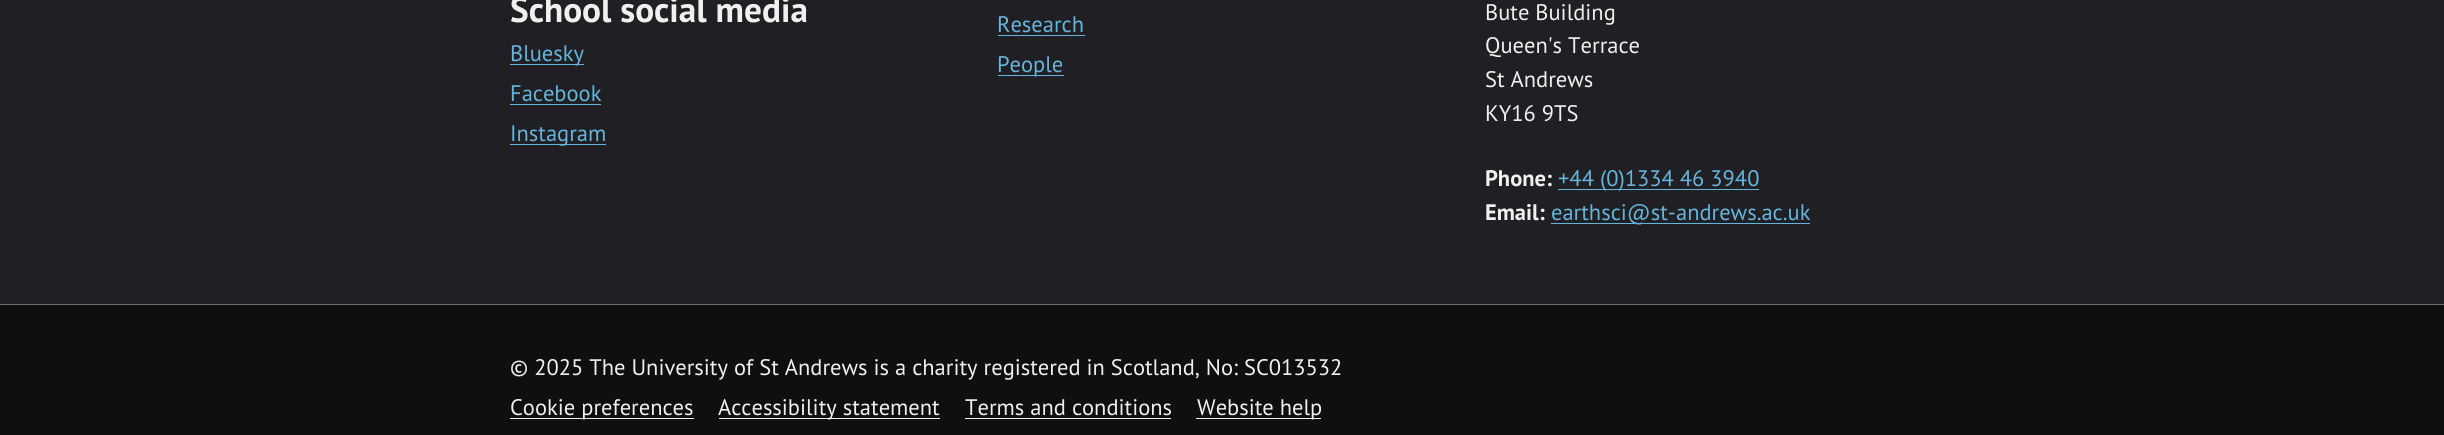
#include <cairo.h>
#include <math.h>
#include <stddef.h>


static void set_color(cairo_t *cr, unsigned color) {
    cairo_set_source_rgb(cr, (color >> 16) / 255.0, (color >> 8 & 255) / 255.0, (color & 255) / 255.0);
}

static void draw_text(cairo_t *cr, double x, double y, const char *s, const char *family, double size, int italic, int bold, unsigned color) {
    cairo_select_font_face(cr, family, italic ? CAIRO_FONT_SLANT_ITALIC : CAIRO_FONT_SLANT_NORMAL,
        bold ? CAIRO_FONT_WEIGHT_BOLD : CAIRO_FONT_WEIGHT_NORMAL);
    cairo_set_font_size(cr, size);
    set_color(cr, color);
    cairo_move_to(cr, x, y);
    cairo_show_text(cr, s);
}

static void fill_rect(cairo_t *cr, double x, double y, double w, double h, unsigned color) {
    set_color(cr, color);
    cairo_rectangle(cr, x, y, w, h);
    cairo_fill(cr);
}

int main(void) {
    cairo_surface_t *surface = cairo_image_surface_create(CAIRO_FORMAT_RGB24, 2444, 435);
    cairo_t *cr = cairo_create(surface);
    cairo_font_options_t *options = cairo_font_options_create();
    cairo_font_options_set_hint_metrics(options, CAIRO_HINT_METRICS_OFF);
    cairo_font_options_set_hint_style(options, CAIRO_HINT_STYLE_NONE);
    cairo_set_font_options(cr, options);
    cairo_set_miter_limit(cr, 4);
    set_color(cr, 0x202024);
    cairo_paint(cr);
    draw_text(cr, 510, 22, "School social media", "PT Sans", 35.25, 0, 1, 0xF0F0F0);
    fill_rect(cr, 510, 64, 74, 1, 0x65B4DC);
    draw_text(cr, 510, 61, "Bluesky", "PT Sans", 22.5, 0, 0, 0x65B4DC);
    draw_text(cr, 510, 101, "Facebook", "PT Sans", 22.5, 0, 0, 0x65B4DC);
    fill_rect(cr, 510, 104, 91, 1, 0x65B4DC);
    fill_rect(cr, 510, 144, 96, 1, 0x65B4DC);
    draw_text(cr, 510, 141, "Instagram", "PT Sans", 22.5, 0, 0, 0x65B4DC);
    draw_text(cr, 997, 32, "Research", "PT Sans", 22.5, 0, 0, 0x65B4DC);
    fill_rect(cr, 998, 35, 87, 1, 0x65B4DC);
    fill_rect(cr, 998, 75, 66, 1, 0x65B4DC);
    draw_text(cr, 997, 72, "People", "PT Sans", 22.5, 0, 0, 0x65B4DC);
    draw_text(cr, 1485, 20, "Bute Building", "PT Sans", 22.5, 0, 0, 0xF0F0F0);
    draw_text(cr, 1485, 53, "Queen's Terrace", "PT Sans", 22.5, 0, 0, 0xF0F0F0);
    draw_text(cr, 1485, 87, "St Andrews", "PT Sans", 22.5, 0, 0, 0xF0F0F0);
    draw_text(cr, 1485, 121, "KY16 9TS", "PT Sans", 22.5, 0, 0, 0xF0F0F0);
    draw_text(cr, 1485, 186, "Phone:", "PT Sans", 22.5, 0, 1, 0xF0F0F0);
    fill_rect(cr, 1558, 189, 201, 1, 0x65B4DC);
    draw_text(cr, 1558, 186, "+44 (0)1334 46 3940", "PT Sans", 22.5, 0, 0, 0x65B4DC);
    draw_text(cr, 1485, 220, "Email:", "PT Sans", 22.5, 0, 1, 0xF0F0F0);
    fill_rect(cr, 1551, 223, 259, 1, 0x65B4DC);
    draw_text(cr, 1551, 220, "earthsci@st-andrews.ac.uk", "PT Sans", 22.5, 0, 0, 0x65B4DC);
    fill_rect(cr, 0, 305, 2444, 130, 0x0F0F11);
    fill_rect(cr, 0, 304, 2444, 1, 0x6A6A6B);
    draw_text(cr, 510, 375, "© 2025 The University of St Andrews is a charity registered in Scotland, No: SC013532", "PT Sans", 22.5, 0, 0, 0xF0F0F0);
    fill_rect(cr, 510, 418, 184, 1, 0xF0F0F0);
    draw_text(cr, 510, 415, "Cookie preferences", "PT Sans", 22.5, 0, 0, 0xF0F0F0);
    fill_rect(cr, 719, 418, 221, 1, 0xF0F0F0);
    draw_text(cr, 718, 415, "Accessibility statement", "PT Sans", 22.5, 0, 0, 0xF0F0F0);
    draw_text(cr, 965, 415, "Terms and conditions", "PT Sans", 22.5, 0, 0, 0xF0F0F0);
    fill_rect(cr, 965, 418, 206, 1, 0xF0F0F0);
    fill_rect(cr, 1196, 418, 125, 1, 0xF0F0F0);
    draw_text(cr, 1197, 415, "Website help", "PT Sans", 22.5, 0, 0, 0xF0F0F0);
    cairo_surface_write_to_png(surface, "output.png");
    cairo_font_options_destroy(options);
    cairo_destroy(cr);
    cairo_surface_destroy(surface);
    return 0;
}
